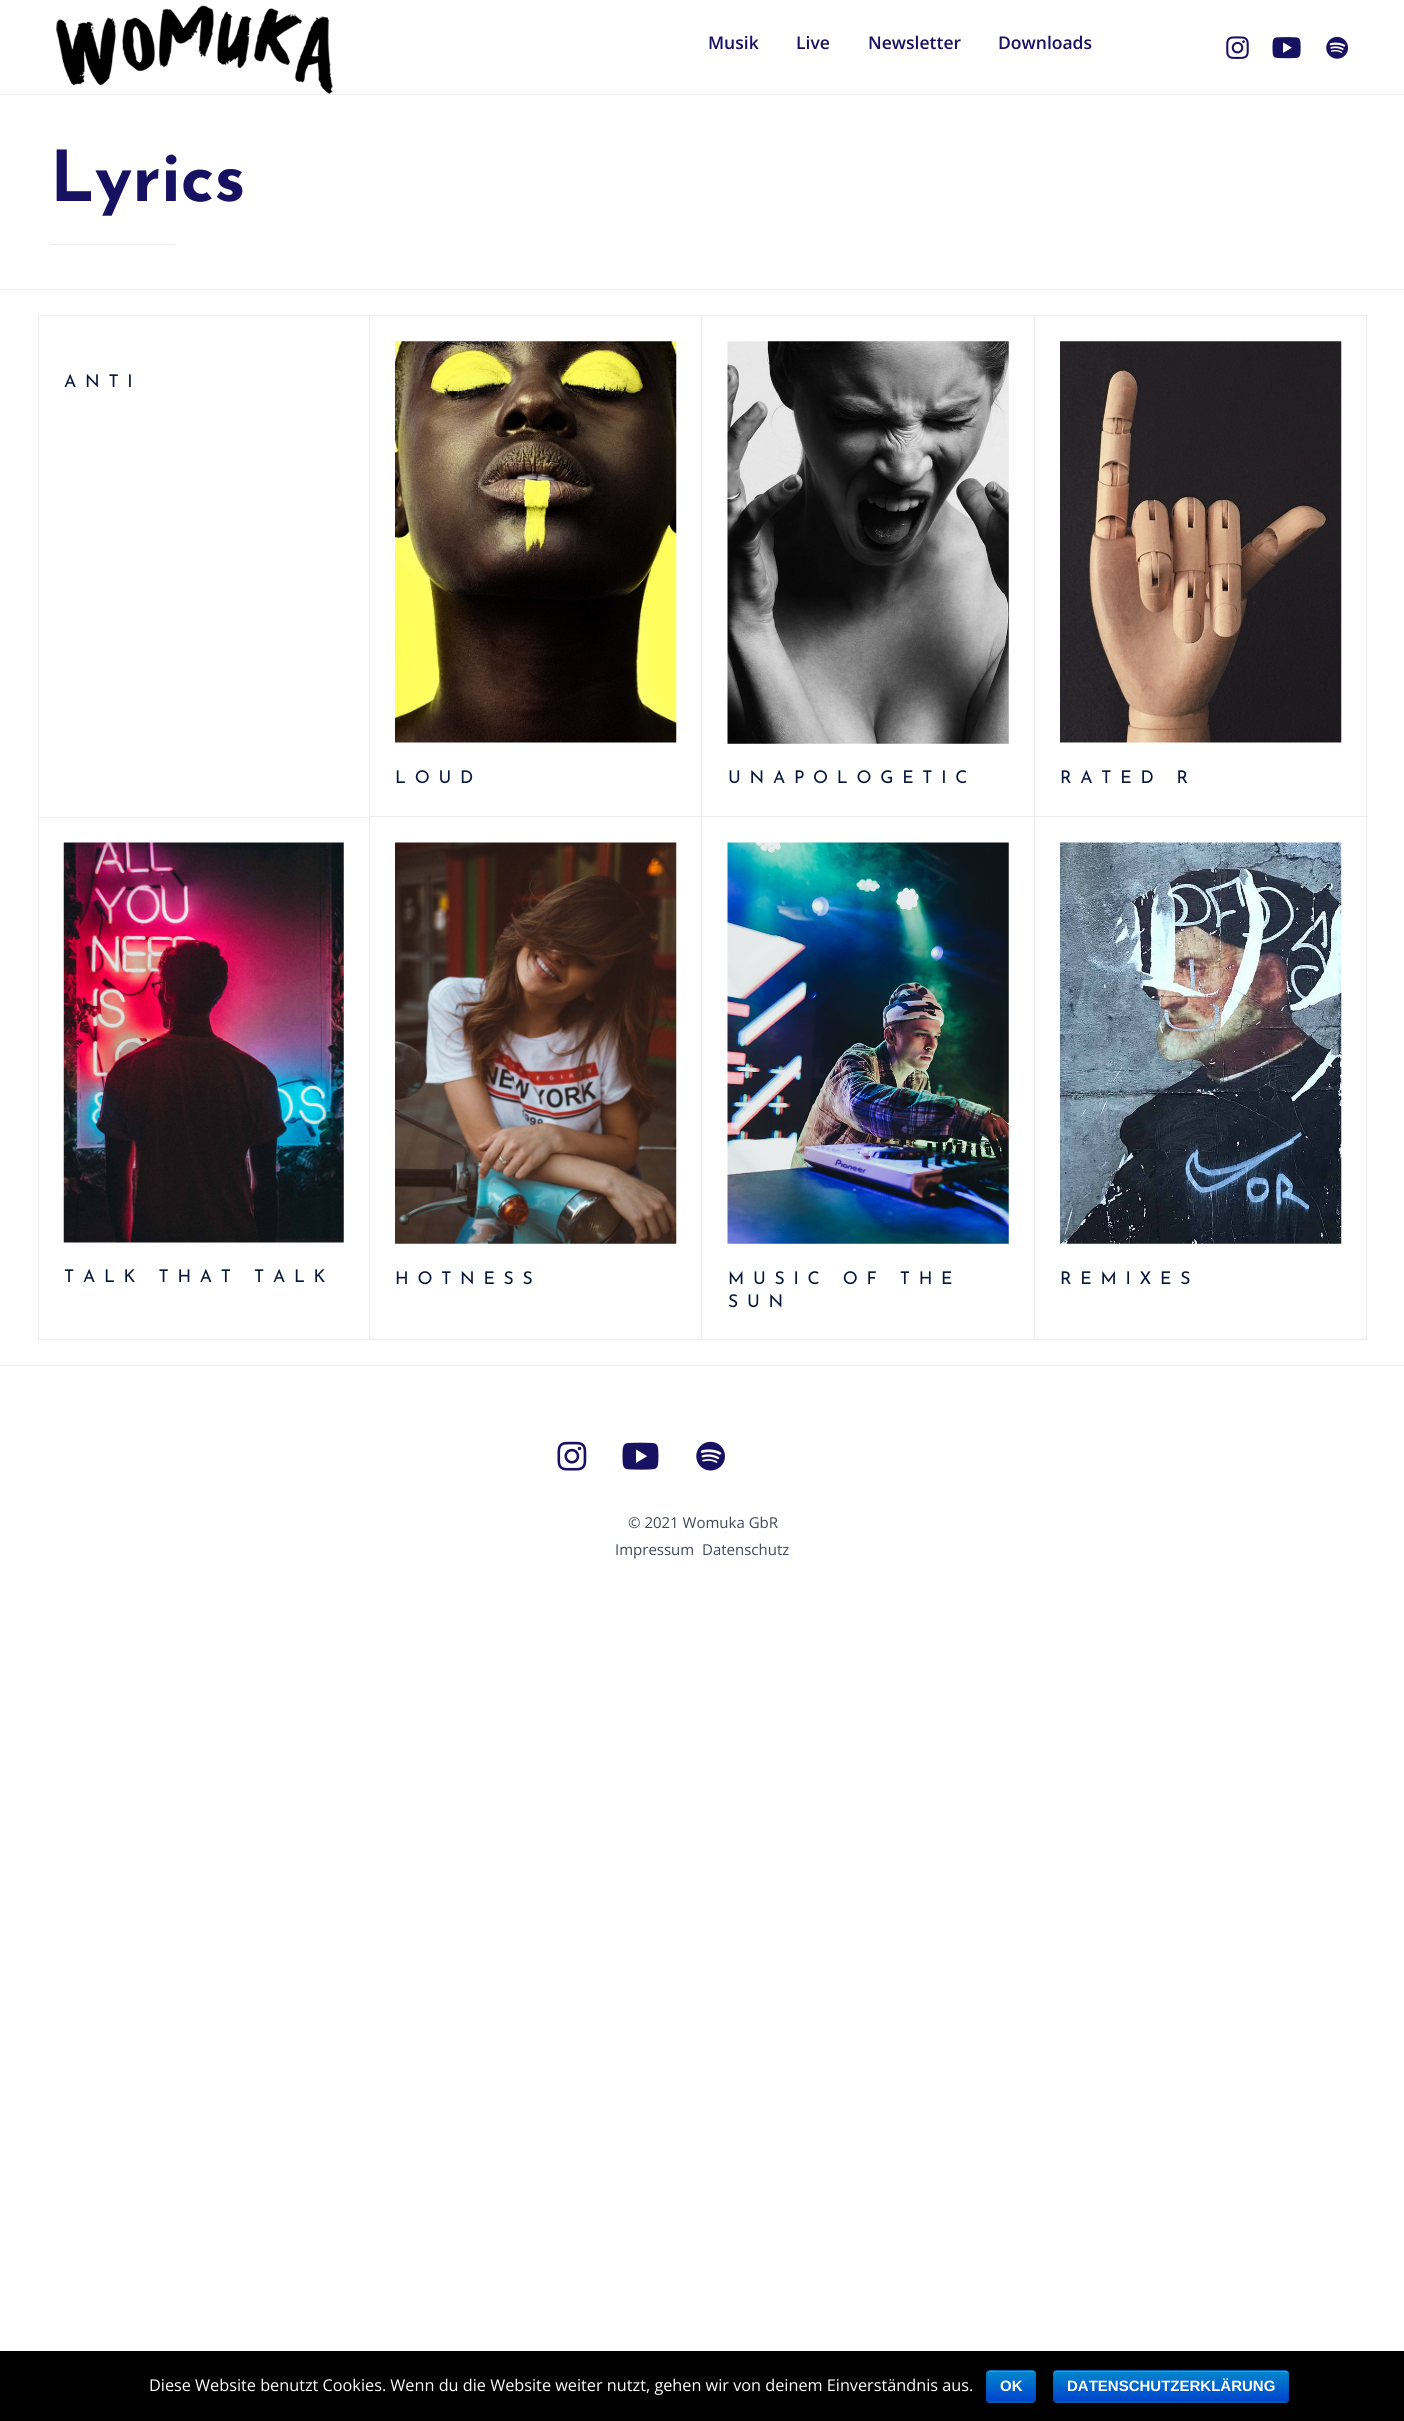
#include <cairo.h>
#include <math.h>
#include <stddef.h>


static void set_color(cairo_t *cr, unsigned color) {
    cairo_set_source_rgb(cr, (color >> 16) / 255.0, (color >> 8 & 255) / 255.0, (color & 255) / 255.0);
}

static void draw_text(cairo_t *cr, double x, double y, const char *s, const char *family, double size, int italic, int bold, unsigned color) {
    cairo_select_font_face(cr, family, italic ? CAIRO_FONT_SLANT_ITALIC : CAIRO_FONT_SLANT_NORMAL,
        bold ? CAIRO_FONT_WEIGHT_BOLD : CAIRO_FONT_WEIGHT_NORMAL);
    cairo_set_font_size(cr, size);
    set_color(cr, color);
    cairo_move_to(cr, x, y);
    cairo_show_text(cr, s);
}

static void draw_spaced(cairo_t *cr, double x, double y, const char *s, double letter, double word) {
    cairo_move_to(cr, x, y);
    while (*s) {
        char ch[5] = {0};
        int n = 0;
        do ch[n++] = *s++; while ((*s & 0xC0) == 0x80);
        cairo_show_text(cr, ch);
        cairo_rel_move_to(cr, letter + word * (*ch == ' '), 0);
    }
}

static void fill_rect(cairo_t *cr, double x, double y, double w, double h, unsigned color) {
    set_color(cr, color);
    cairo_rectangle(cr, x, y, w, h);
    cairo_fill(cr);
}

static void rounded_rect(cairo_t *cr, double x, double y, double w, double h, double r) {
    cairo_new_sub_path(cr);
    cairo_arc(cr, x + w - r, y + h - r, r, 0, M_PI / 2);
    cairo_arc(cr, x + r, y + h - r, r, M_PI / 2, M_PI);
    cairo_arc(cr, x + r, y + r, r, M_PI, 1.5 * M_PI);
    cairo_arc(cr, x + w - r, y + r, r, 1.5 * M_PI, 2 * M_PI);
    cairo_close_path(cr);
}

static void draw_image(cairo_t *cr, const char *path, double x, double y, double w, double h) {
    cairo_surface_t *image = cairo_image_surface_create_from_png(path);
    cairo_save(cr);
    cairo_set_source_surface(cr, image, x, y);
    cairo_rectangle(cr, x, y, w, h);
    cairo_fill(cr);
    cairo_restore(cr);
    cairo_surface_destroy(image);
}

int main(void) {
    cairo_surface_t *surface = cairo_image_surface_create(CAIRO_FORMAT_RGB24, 1404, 2421);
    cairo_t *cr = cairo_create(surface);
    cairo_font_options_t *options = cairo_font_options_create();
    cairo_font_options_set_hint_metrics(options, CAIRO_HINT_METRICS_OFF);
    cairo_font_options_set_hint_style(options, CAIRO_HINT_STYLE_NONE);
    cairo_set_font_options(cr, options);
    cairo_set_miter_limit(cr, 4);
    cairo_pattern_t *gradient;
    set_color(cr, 0xFFFFFF);
    cairo_paint(cr);
    draw_image(cr, "assets/img1.png", 56, 5, 277, 89);
    draw_text(cr, 708, 49, "Musik", "Open Sans SemiBold", 17.5, 0, 0, 0x181061);
    draw_text(cr, 796, 49, "Live", "Open Sans SemiBold", 17.5, 0, 0, 0x181061);
    draw_text(cr, 868, 49, "Newsletter", "Open Sans SemiBold", 17.5, 0, 0, 0x181061);
    draw_text(cr, 998, 49, "Downloads", "Open Sans SemiBold", 17.5, 0, 0, 0x181061);
    draw_image(cr, "assets/img2.png", 1226, 36, 23, 23);
    draw_image(cr, "assets/img3.png", 1272, 37, 29, 22);
    draw_image(cr, "assets/img4.png", 1326, 36, 23, 23);
    fill_rect(cr, 0, 94, 1404, 1, 0xEDEDED);
    fill_rect(cr, 0, 289, 1404, 1, 0xEDEDED);
    draw_text(cr, 50, 201, "Lyrics", "Josefin Sans", 70, 0, 1, 0x181061);
    fill_rect(cr, 50, 244, 125, 1, 0xEDEDED);
    cairo_rectangle(cr, 38.5, 315.5, 331, 502);
    cairo_set_line_width(cr, 1);
    cairo_stroke(cr);
    cairo_select_font_face(cr, "Josefin Sans", CAIRO_FONT_SLANT_NORMAL, CAIRO_FONT_WEIGHT_NORMAL);
    cairo_set_font_size(cr, 17.5);
    set_color(cr, 0x06163A);
    draw_spaced(cr, 64, 387, "ANTI", 8.75, 0);
    fill_rect(cr, 370, 315, 998, 1, 0xEDEDED);
    fill_rect(cr, 701, 315, 1, 1025, 0xEDEDED);
    fill_rect(cr, 370, 816, 333, 1, 0xEDEDED);
    draw_image(cr, "assets/img5.png", 395, 341, 282, 402);
    set_color(cr, 0x06163A);
    draw_spaced(cr, 395, 783, "LOUD", 8.75, 0);
    fill_rect(cr, 1034, 315, 1, 1025, 0xEDEDED);
    fill_rect(cr, 703, 816, 332, 1, 0xEDEDED);
    draw_image(cr, "assets/img6.png", 727, 341, 282, 403);
    set_color(cr, 0x06163A);
    draw_spaced(cr, 728, 783, "UNAPOLOGETIC", 8.75, 0);
    fill_rect(cr, 1366, 315, 1, 1025, 0xEDEDED);
    fill_rect(cr, 1035, 816, 333, 1, 0xEDEDED);
    draw_image(cr, "assets/img7.png", 1060, 341, 282, 402);
    set_color(cr, 0x06163A);
    draw_spaced(cr, 1060, 783, "RATED R", 8.75, 0);
    fill_rect(cr, 369, 818, 1, 522, 0xEDEDED);
    fill_rect(cr, 38, 1339, 1330, 1, 0xEDEDED);
    fill_rect(cr, 38, 818, 1, 522, 0xEDEDED);
    draw_image(cr, "assets/img8.png", 63, 842, 281, 401);
    set_color(cr, 0x06163A);
    draw_spaced(cr, 64, 1282, "TALK THAT TALK", 8.75, 0);
    draw_image(cr, "assets/img9.png", 395, 842, 282, 402);
    draw_spaced(cr, 395, 1284, "HOTNESS", 8.75, 0);
    draw_image(cr, "assets/img10.png", 727, 842, 282, 402);
    draw_spaced(cr, 728, 1284, "MUSIC OF THE", 8.75, 0);
    draw_spaced(cr, 728, 1307, "SUN", 8.75, 0);
    draw_image(cr, "assets/img11.png", 1060, 842, 282, 402);
    draw_spaced(cr, 1060, 1284, "REMIXES", 8.75, 0);
    fill_rect(cr, 0, 1365, 1404, 1, 0xEDEDED);
    draw_image(cr, "assets/img12.png", 557, 1441, 30, 30);
    draw_image(cr, "assets/img13.png", 622, 1442, 37, 28);
    draw_image(cr, "assets/img14.png", 696, 1441, 29, 30);
    draw_text(cr, 628, 1528, "© 2021 Womuka GbR", "Open Sans", 15, 0, 0, 0x3F485D);
    draw_text(cr, 615, 1555, "Impressum", "Open Sans", 15, 0, 0, 0x3F485D);
    draw_text(cr, 702, 1555, "Datenschutz", "Open Sans", 15, 0, 0, 0x3F485D);
    fill_rect(cr, 0, 2351, 1404, 70, 0x000000);
    draw_text(cr, 149, 2391, "Diese Website benutzt Cookies. Wenn du die Website weiter nutzt, gehen wir von deinem Einverständnis aus.", "Open Sans", 16.25, 0, 0, 0xFFFFFF);
    set_color(cr, 0x006DCC);
    rounded_rect(cr, 986, 2370, 50, 33, 4);
    cairo_fill(cr);
    cairo_save(cr);
    rounded_rect(cr, 986, 2370, 50, 33, 4);
    cairo_clip(cr);
    gradient = cairo_pattern_create_linear(1011, 2371, 1011, 2401);
    cairo_pattern_add_color_stop_rgba(gradient, 0, 0, 0.533, 0.8, 1);
    cairo_pattern_add_color_stop_rgba(gradient, 1, 0, 0.267, 0.8, 1);
    cairo_set_source(cr, gradient);
    cairo_pattern_destroy(gradient);
    cairo_rectangle(cr, 986, 2371, 50, 30);
    cairo_fill(cr);
    cairo_restore(cr);
    set_color(cr, 0x339FD6);
    cairo_new_path(cr);
    cairo_move_to(cr, 990, 2372);
    cairo_line_to(cr, 1032, 2372);
    cairo_curve_to(cr, 1034, 2372, 1035, 2374, 1035, 2375);
    cairo_curve_to(cr, 1035, 2369, 1031, 2371, 1026, 2371);
    cairo_line_to(cr, 998, 2371);
    cairo_curve_to(cr, 992, 2371, 988, 2369, 988, 2375);
    cairo_curve_to(cr, 988, 2374, 989, 2372, 990, 2372);
    cairo_close_path(cr);
    cairo_fill(cr);
    cairo_new_path(cr);
    cairo_move_to(cr, 1034.5, 2401);
    cairo_line_to(cr, 1033, 2402);
    cairo_line_to(cr, 989.5, 2402);
    cairo_line_to(cr, 988, 2401);
    cairo_set_source_rgba(cr, 0, 0, 0, 0.25);
    cairo_set_line_width(cr, 1.2);
    cairo_stroke(cr);
    cairo_new_path(cr);
    cairo_move_to(cr, 988, 2401);
    cairo_curve_to(cr, 985.5, 2399, 987, 2389, 987, 2386);
    cairo_curve_to(cr, 987, 2371, 983.5, 2370.5, 997, 2370.5);
    cairo_line_to(cr, 1025.5, 2370.5);
    cairo_curve_to(cr, 1039, 2370.5, 1035.5, 2371, 1035.5, 2386);
    cairo_curve_to(cr, 1035.5, 2389, 1037, 2399, 1034.5, 2401);
    cairo_set_source_rgba(cr, 0, 0, 0, 0.1);
    cairo_stroke(cr);
    draw_text(cr, 1000, 2391, "OK", "Liberation Sans", 15, 0, 1, 0xFFFFFF);
    set_color(cr, 0x006DCC);
    rounded_rect(cr, 1053, 2370, 236, 33, 4);
    cairo_fill(cr);
    cairo_save(cr);
    rounded_rect(cr, 1053, 2370, 236, 33, 4);
    cairo_clip(cr);
    gradient = cairo_pattern_create_linear(1171, 2371, 1171, 2401);
    cairo_pattern_add_color_stop_rgba(gradient, 0, 0, 0.533, 0.8, 1);
    cairo_pattern_add_color_stop_rgba(gradient, 1, 0, 0.267, 0.8, 1);
    cairo_set_source(cr, gradient);
    cairo_pattern_destroy(gradient);
    cairo_rectangle(cr, 1053, 2371, 236, 30);
    cairo_fill(cr);
    cairo_restore(cr);
    cairo_set_source_rgba(cr, 1, 1, 1, 0.2);
    cairo_new_path(cr);
    cairo_move_to(cr, 1056, 2372);
    cairo_line_to(cr, 1285, 2372);
    cairo_line_to(cr, 1288, 2374);
    cairo_line_to(cr, 1288, 2375);
    cairo_curve_to(cr, 1288, 2373, 1288, 2371, 1286, 2371);
    cairo_line_to(cr, 1056, 2371);
    cairo_curve_to(cr, 1054, 2371, 1054, 2373, 1054, 2375);
    cairo_curve_to(cr, 1054, 2374, 1055, 2372, 1056, 2372);
    cairo_close_path(cr);
    cairo_fill(cr);
    cairo_new_path(cr);
    cairo_move_to(cr, 1287, 2401);
    cairo_line_to(cr, 1285, 2402);
    cairo_line_to(cr, 1056, 2402);
    cairo_line_to(cr, 1054, 2401);
    cairo_set_source_rgba(cr, 0, 0, 0, 0.25);
    cairo_stroke(cr);
    cairo_new_path(cr);
    cairo_move_to(cr, 1054, 2401);
    cairo_curve_to(cr, 1052, 2399, 1053, 2389, 1053, 2386);
    cairo_line_to(cr, 1053, 2378);
    cairo_curve_to(cr, 1053, 2375.5, 1052.5, 2370.5, 1056, 2370.5);
    cairo_line_to(cr, 1285, 2370.5);
    cairo_curve_to(cr, 1289, 2370.5, 1288, 2375.5, 1288, 2378);
    cairo_line_to(cr, 1288, 2386);
    cairo_curve_to(cr, 1288, 2389, 1289.5, 2399, 1287, 2401);
    cairo_set_source_rgba(cr, 0, 0, 0, 0.1);
    cairo_stroke(cr);
    draw_text(cr, 1067, 2391, "DATENSCHUTZERKLÄRUNG", "Liberation Sans", 15, 0, 1, 0xFFFFFF);
    cairo_surface_write_to_png(surface, "output.png");
    cairo_font_options_destroy(options);
    cairo_destroy(cr);
    cairo_surface_destroy(surface);
    return 0;
}
